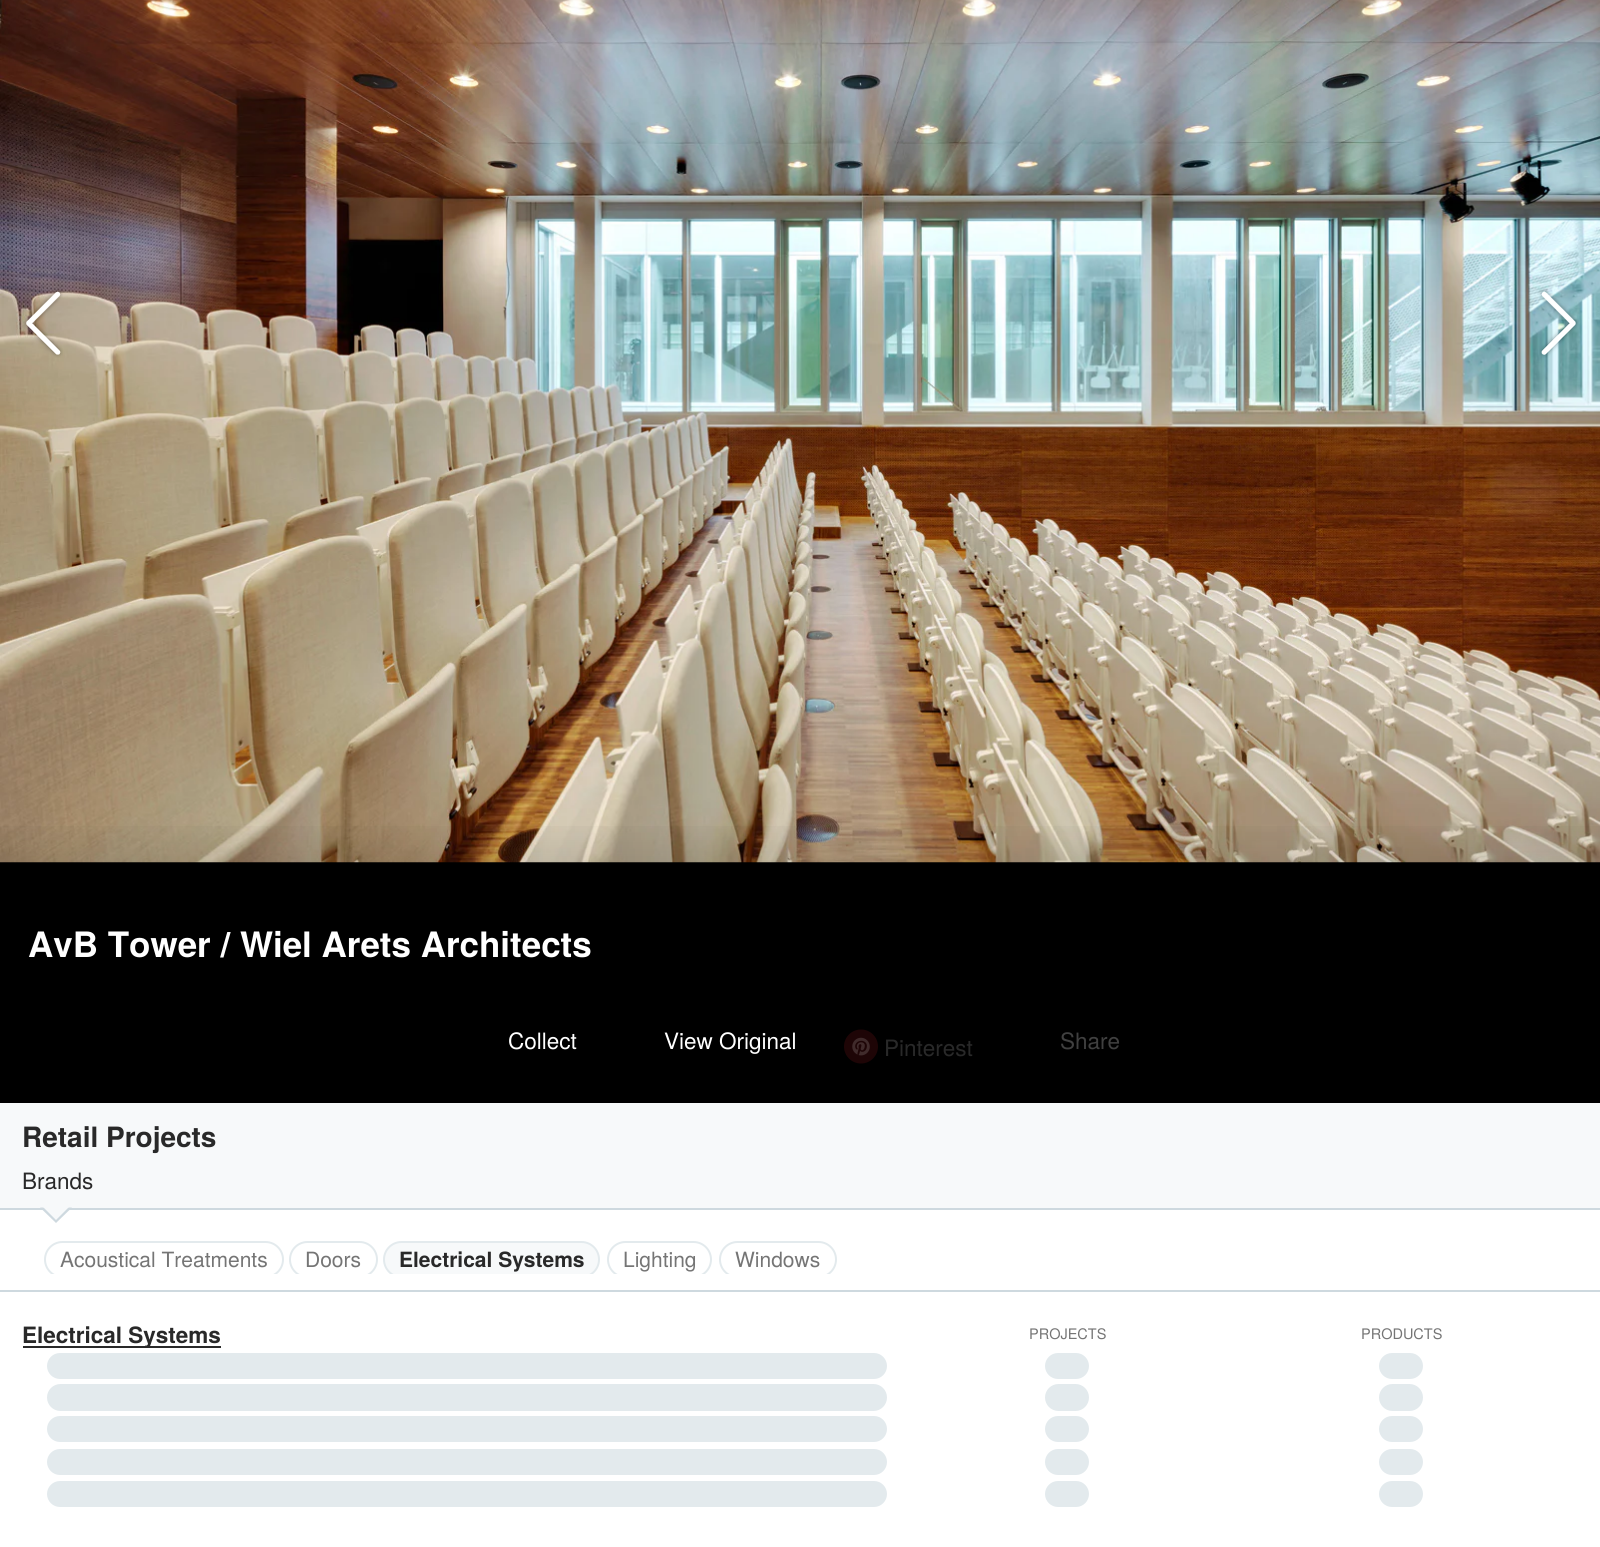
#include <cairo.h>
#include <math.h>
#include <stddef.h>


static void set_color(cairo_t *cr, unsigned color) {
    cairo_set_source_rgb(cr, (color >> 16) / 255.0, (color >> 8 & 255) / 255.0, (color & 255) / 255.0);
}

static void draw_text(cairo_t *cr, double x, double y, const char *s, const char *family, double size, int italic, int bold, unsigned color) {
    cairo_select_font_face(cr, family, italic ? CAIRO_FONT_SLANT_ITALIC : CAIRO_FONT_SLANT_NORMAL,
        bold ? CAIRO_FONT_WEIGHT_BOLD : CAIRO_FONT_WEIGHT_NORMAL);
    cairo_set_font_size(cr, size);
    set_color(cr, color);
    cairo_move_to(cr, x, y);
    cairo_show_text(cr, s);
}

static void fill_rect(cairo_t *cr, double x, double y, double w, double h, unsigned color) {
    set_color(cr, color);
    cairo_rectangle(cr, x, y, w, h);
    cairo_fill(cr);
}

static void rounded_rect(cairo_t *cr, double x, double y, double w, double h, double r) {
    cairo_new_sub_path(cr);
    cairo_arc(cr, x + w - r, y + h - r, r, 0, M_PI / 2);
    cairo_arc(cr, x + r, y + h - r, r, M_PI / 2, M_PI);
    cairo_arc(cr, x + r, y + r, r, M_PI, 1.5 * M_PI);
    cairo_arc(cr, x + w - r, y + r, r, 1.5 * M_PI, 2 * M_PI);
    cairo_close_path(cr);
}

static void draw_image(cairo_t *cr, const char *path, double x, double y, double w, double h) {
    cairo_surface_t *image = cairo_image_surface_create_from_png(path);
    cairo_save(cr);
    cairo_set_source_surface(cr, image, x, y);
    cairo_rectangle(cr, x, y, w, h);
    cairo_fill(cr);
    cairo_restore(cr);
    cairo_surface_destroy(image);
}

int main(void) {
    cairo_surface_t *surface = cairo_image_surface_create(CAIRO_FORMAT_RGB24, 1600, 1547);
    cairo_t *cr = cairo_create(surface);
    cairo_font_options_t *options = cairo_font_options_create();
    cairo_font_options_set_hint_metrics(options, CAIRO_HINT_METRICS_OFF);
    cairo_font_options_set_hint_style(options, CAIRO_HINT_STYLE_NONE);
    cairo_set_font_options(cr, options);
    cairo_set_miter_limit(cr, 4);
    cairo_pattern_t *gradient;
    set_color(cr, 0xFFFFFF);
    cairo_paint(cr);
    fill_rect(cr, 0, 862, 1600, 241, 0x000000);
    draw_image(cr, "assets/img1.png", 0, 0, 1600, 863);
    draw_image(cr, "assets/img2.png", 23, 289, 40, 69);
    draw_image(cr, "assets/img3.png", 1539, 289, 40, 69);
    draw_text(cr, 28, 957, "AvB Tower / Wiel Arets Architects", "TeX Gyre Heros", 35, 0, 1, 0xFFFFFF);
    gradient = cairo_pattern_create_linear(801, 1103, 801, 814);
    cairo_pattern_add_color_stop_rgba(gradient, 0, 0, 0, 0, 0.5);
    cairo_pattern_add_color_stop_rgba(gradient, 1, 0, 0, 0, 0);
    cairo_set_source(cr, gradient);
    cairo_pattern_destroy(gradient);
    cairo_rectangle(cr, 0, 826, 1600, 37);
    cairo_fill(cr);
    draw_text(cr, 508, 1049, "Collect", "TeX Gyre Heros", 22.5, 0, 0, 0xFFFFFF);
    draw_text(cr, 664, 1049, "View Original", "TeX Gyre Heros", 22.5, 0, 0, 0xFFFFFF);
    draw_image(cr, "assets/img4.png", 844, 1029, 34, 35);
    draw_text(cr, 884, 1056, "Pinterest", "TeX Gyre Heros", 22.5, 0, 0, 0x292929);
    draw_text(cr, 1060, 1049, "Share", "TeX Gyre Heros", 22.5, 0, 0, 0x404040);
    fill_rect(cr, 0, 1103, 1600, 105, 0xF7F9FA);
    fill_rect(cr, 0, 1208, 1600, 2, 0xCED9DF);
    draw_text(cr, 22, 1147, "Retail Projects", "TeX Gyre Heros", 28, 0, 1, 0x292929);
    draw_text(cr, 22, 1189, "Brands", "TeX Gyre Heros", 22.5, 0, 0, 0x292929);
    set_color(cr, 0xCED9DF);
    cairo_new_path(cr);
    cairo_move_to(cr, 40, 1207.5);
    cairo_line_to(cr, 72, 1207.5);
    cairo_line_to(cr, 56, 1223);
    cairo_close_path(cr);
    cairo_fill(cr);
    set_color(cr, 0xF7F9FA);
    cairo_new_path(cr);
    cairo_move_to(cr, 42, 1206);
    cairo_line_to(cr, 70, 1206);
    cairo_line_to(cr, 56, 1220);
    cairo_close_path(cr);
    cairo_fill(cr);
    cairo_save(cr);
    cairo_rectangle(cr, 44, 1230, 1514, 44);
    cairo_clip(cr);
    rounded_rect(cr, 45, 1242, 238, 35, 17.5);
    set_color(cr, 0xE3EAED);
    cairo_stroke(cr);
    cairo_restore(cr);
    draw_text(cr, 60, 1267, "Acoustical Treatments", "TeX Gyre Heros", 21, 0, 0, 0x757575);
    cairo_save(cr);
    cairo_rectangle(cr, 44, 1230, 1514, 44);
    cairo_clip(cr);
    rounded_rect(cr, 290, 1242, 87, 35, 17.5);
    set_color(cr, 0xE3EAED);
    cairo_stroke(cr);
    cairo_restore(cr);
    draw_text(cr, 305, 1267, "Doors", "TeX Gyre Heros", 21, 0, 0, 0x757575);
    cairo_save(cr);
    cairo_rectangle(cr, 44, 1230, 1514, 44);
    cairo_clip(cr);
    set_color(cr, 0xF7F9FA);
    rounded_rect(cr, 384, 1242, 215, 35, 17.5);
    cairo_fill_preserve(cr);
    set_color(cr, 0xE3EAED);
    cairo_stroke(cr);
    cairo_restore(cr);
    draw_text(cr, 399, 1267, "Electrical Systems", "TeX Gyre Heros", 21, 0, 1, 0x292929);
    cairo_save(cr);
    cairo_rectangle(cr, 44, 1230, 1514, 44);
    cairo_clip(cr);
    rounded_rect(cr, 608, 1242, 103, 35, 17.5);
    set_color(cr, 0xE3EAED);
    cairo_stroke(cr);
    cairo_restore(cr);
    draw_text(cr, 623, 1267, "Lighting", "TeX Gyre Heros", 21, 0, 0, 0x757575);
    cairo_save(cr);
    cairo_rectangle(cr, 44, 1230, 1514, 44);
    cairo_clip(cr);
    rounded_rect(cr, 720, 1242, 116, 35, 17.5);
    set_color(cr, 0xE3EAED);
    cairo_stroke(cr);
    cairo_restore(cr);
    draw_text(cr, 735, 1267, "Windows", "TeX Gyre Heros", 21, 0, 0, 0x757575);
    fill_rect(cr, 0, 1290, 1600, 2, 0xCED9DF);
    fill_rect(cr, 23, 1346, 198, 2, 0x292929);
    draw_text(cr, 22, 1343, "Electrical Systems", "TeX Gyre Heros", 22.5, 0, 1, 0x292929);
    draw_text(cr, 1029, 1339, "PROJECTS", "TeX Gyre Heros", 14.5, 0, 0, 0x757575);
    draw_text(cr, 1361, 1339, "PRODUCTS", "TeX Gyre Heros", 14.5, 0, 0, 0x757575);
    set_color(cr, 0xE3EAED);
    rounded_rect(cr, 47, 1353, 840, 26, 13);
    cairo_fill(cr);
    rounded_rect(cr, 1045, 1353, 44, 26, 13);
    cairo_fill(cr);
    rounded_rect(cr, 1379, 1353, 44, 26, 13);
    cairo_fill(cr);
    rounded_rect(cr, 47, 1384, 840, 27, 13.5);
    cairo_fill(cr);
    rounded_rect(cr, 1045, 1384, 44, 27, 13.5);
    cairo_fill(cr);
    rounded_rect(cr, 1379, 1384, 44, 27, 13.5);
    cairo_fill(cr);
    rounded_rect(cr, 47, 1416, 840, 26, 13);
    cairo_fill(cr);
    rounded_rect(cr, 1045, 1416, 44, 26, 13);
    cairo_fill(cr);
    rounded_rect(cr, 1379, 1416, 44, 26, 13);
    cairo_fill(cr);
    rounded_rect(cr, 47, 1449, 840, 26, 13);
    cairo_fill(cr);
    rounded_rect(cr, 1045, 1449, 44, 26, 13);
    cairo_fill(cr);
    rounded_rect(cr, 1379, 1449, 44, 26, 13);
    cairo_fill(cr);
    rounded_rect(cr, 47, 1481, 840, 26, 13);
    cairo_fill(cr);
    rounded_rect(cr, 1045, 1481, 44, 26, 13);
    cairo_fill(cr);
    rounded_rect(cr, 1379, 1481, 44, 26, 13);
    cairo_fill(cr);
    cairo_surface_write_to_png(surface, "output.png");
    cairo_font_options_destroy(options);
    cairo_destroy(cr);
    cairo_surface_destroy(surface);
    return 0;
}
